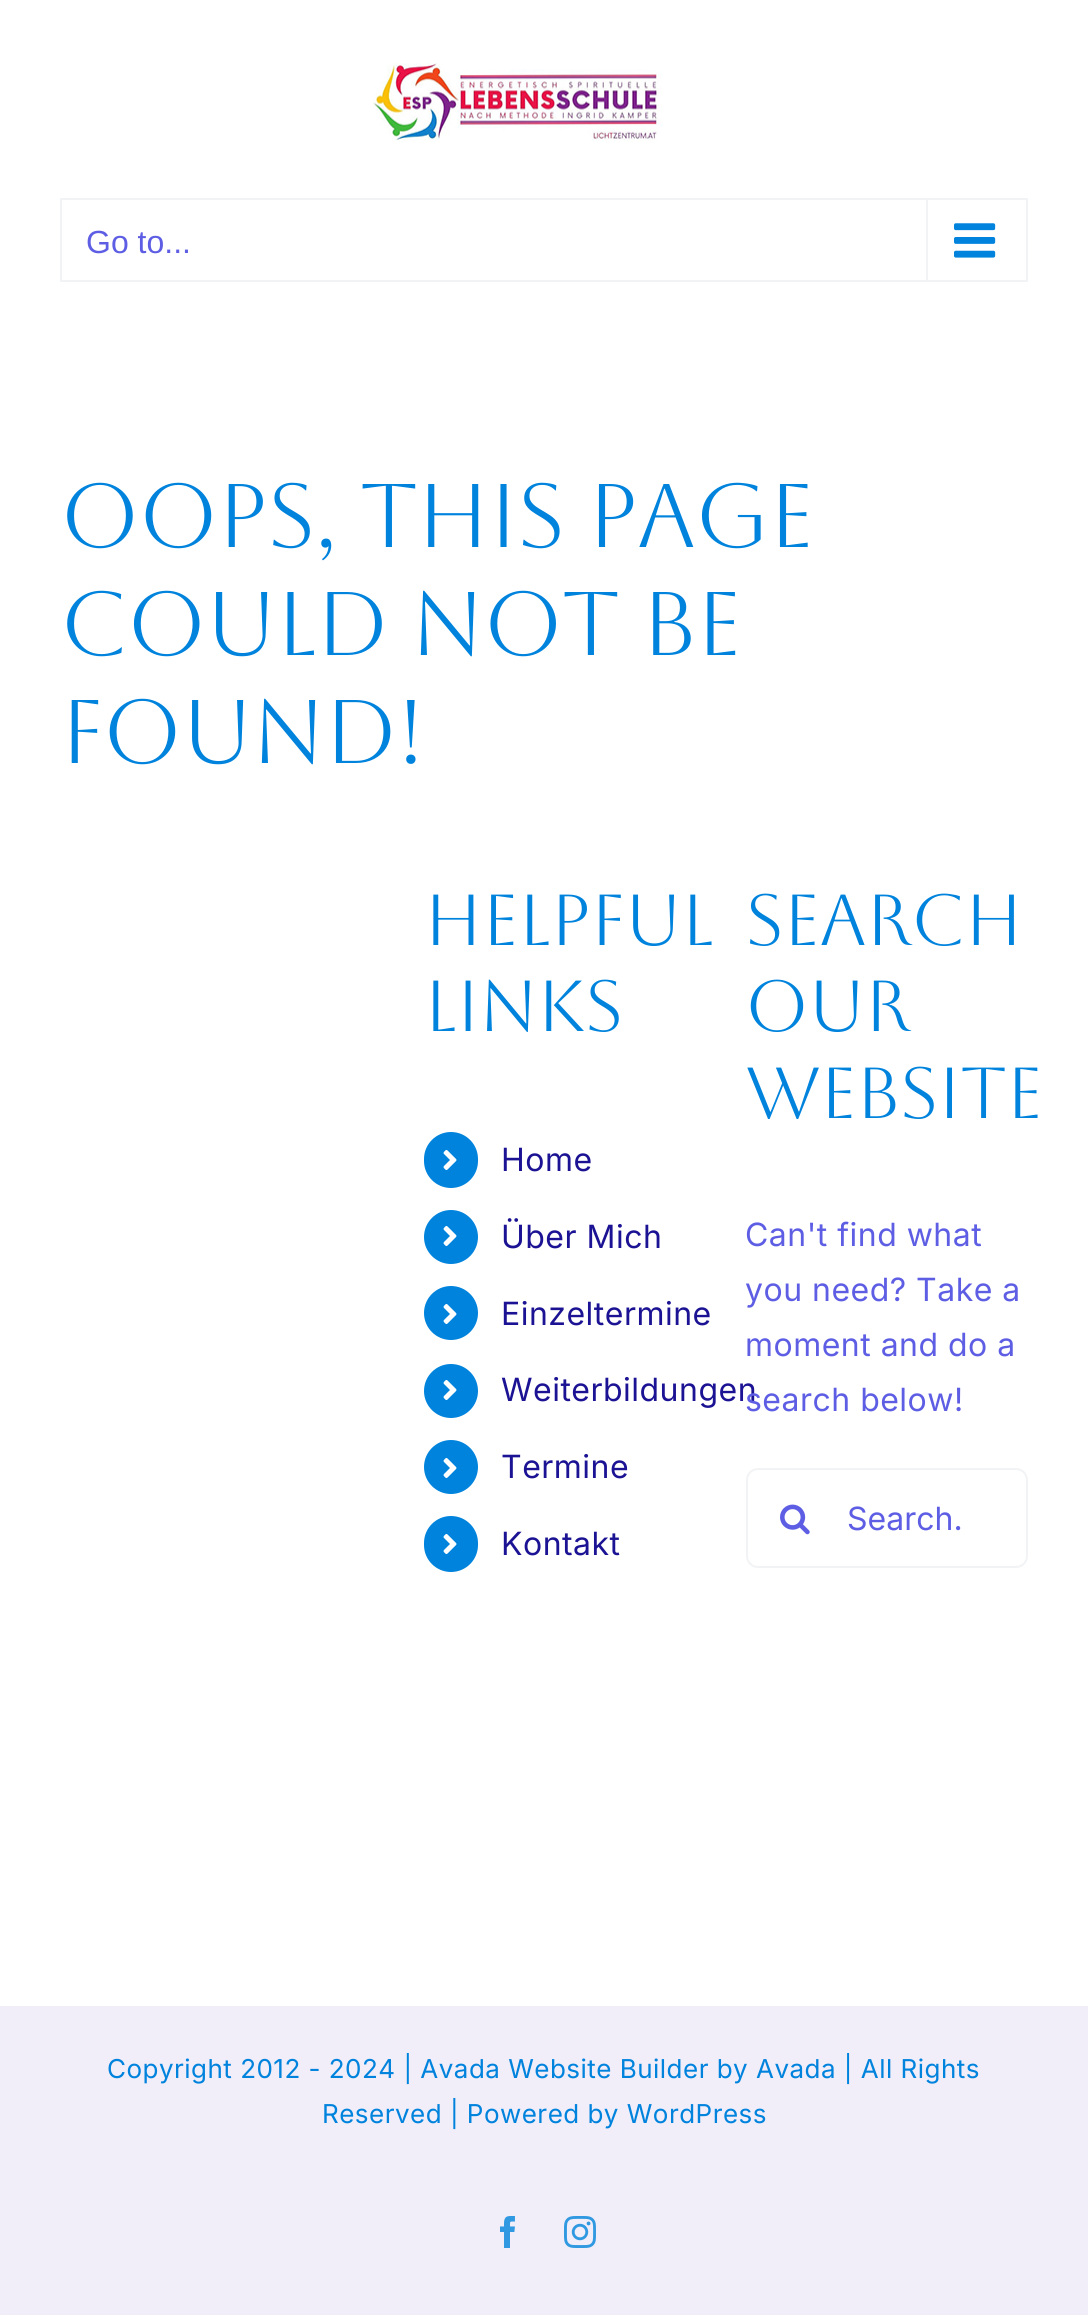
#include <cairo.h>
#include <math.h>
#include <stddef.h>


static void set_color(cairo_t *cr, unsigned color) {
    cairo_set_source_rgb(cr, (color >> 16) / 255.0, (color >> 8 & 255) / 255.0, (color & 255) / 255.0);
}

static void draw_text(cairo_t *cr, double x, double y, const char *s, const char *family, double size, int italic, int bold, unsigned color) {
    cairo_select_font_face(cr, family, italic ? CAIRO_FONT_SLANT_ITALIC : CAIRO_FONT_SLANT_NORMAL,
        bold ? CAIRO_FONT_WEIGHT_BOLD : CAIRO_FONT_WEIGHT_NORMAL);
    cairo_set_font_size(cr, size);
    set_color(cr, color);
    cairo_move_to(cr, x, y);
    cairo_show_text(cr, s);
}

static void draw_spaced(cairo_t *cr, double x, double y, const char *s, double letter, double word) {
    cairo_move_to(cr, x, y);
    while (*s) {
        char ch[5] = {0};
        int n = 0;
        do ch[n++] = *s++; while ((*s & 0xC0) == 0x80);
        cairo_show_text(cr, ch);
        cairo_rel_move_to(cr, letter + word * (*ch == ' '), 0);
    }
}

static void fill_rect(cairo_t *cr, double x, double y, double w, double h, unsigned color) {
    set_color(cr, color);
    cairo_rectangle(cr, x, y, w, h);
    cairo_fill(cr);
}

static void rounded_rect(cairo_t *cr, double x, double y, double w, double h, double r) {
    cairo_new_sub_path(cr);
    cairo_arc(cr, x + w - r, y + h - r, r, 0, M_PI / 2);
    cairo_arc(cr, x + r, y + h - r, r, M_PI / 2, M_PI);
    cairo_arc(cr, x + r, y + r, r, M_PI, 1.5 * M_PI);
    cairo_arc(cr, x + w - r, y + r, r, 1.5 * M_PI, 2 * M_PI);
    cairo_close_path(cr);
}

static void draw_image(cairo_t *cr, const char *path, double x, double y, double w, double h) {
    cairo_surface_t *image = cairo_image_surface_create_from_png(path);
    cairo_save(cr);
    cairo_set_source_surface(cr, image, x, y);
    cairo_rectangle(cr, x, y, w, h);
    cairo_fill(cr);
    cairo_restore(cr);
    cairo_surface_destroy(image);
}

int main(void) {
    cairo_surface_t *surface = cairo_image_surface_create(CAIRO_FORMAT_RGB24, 1088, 2315);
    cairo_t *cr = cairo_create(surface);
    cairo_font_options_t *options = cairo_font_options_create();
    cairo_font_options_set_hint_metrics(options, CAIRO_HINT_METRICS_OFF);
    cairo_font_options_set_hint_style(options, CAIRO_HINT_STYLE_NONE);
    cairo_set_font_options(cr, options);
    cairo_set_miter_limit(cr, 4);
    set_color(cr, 0xFFFFFF);
    cairo_paint(cr);
    draw_image(cr, "assets/img1.png", 373, 63, 289, 80);
    cairo_rectangle(cr, 61, 199, 966, 82);
    set_color(cr, 0xF2F3F5);
    cairo_stroke(cr);
    draw_text(cr, 86, 253, "Go to...", "Liberation Sans", 32, 0, 0, 0x5E5EE5);
    fill_rect(cr, 926, 200, 2, 80, 0xF2F3F5);
    draw_image(cr, "assets/img2.png", 954, 223, 42, 35);
    cairo_select_font_face(cr, "Aboreto", CAIRO_FONT_SLANT_NORMAL, CAIRO_FONT_WEIGHT_NORMAL);
    cairo_set_font_size(cr, 90);
    set_color(cr, 0x0083DD);
    draw_spaced(cr, 60, 547, "Oops, This Page", -1.4, 0);
    draw_spaced(cr, 60, 655, "Could Not Be", -1.4, 0);
    draw_spaced(cr, 60, 763, "Found!", -1.4, 0);
    cairo_set_font_size(cr, 72);
    draw_spaced(cr, 424, 945, "Helpful", -1, 0);
    draw_spaced(cr, 424, 1031, "Links", -1, 0);
    rounded_rect(cr, 424, 1132, 54, 56, 27);
    cairo_fill(cr);
    draw_image(cr, "assets/img3.png", 443, 1150, 14, 20);
    cairo_select_font_face(cr, "Inter", CAIRO_FONT_SLANT_NORMAL, CAIRO_FONT_WEIGHT_NORMAL);
    cairo_set_font_size(cr, 32);
    set_color(cr, 0x1B1393);
    draw_spaced(cr, 501, 1171, "Home", 0.48, 0);
    set_color(cr, 0x0083DD);
    cairo_new_path(cr);
    cairo_arc(cr, 451, 1237, 27, 0, 2 * M_PI);
    cairo_fill(cr);
    draw_image(cr, "assets/img3.png", 443, 1226, 14, 20);
    set_color(cr, 0x1B1393);
    draw_spaced(cr, 501, 1248, "Über Mich", 0.48, 0);
    set_color(cr, 0x0083DD);
    cairo_new_path(cr);
    cairo_arc(cr, 451, 1313, 27, 0, 2 * M_PI);
    cairo_fill(cr);
    draw_image(cr, "assets/img3.png", 443, 1304, 14, 20);
    set_color(cr, 0x1B1393);
    draw_spaced(cr, 501, 1325, "Einzeltermine", 0.48, 0);
    set_color(cr, 0x0083DD);
    cairo_new_path(cr);
    cairo_arc(cr, 451, 1391, 27, 0, 2 * M_PI);
    cairo_fill(cr);
    draw_image(cr, "assets/img3.png", 443, 1380, 14, 20);
    set_color(cr, 0x1B1393);
    draw_spaced(cr, 501, 1401, "Weiterbildungen", 0.48, 0);
    set_color(cr, 0x0083DD);
    cairo_new_path(cr);
    cairo_arc(cr, 451, 1467, 27, 0, 2 * M_PI);
    cairo_fill(cr);
    draw_image(cr, "assets/img3.png", 443, 1458, 14, 20);
    set_color(cr, 0x1B1393);
    draw_spaced(cr, 501, 1478, "Termine", 0.48, 0);
    set_color(cr, 0x0083DD);
    rounded_rect(cr, 424, 1516, 54, 56, 27);
    cairo_fill(cr);
    draw_image(cr, "assets/img3.png", 443, 1534, 14, 20);
    set_color(cr, 0x1B1393);
    draw_spaced(cr, 501, 1555, "Kontakt", 0.48, 0);
    cairo_select_font_face(cr, "Aboreto", CAIRO_FONT_SLANT_NORMAL, CAIRO_FONT_WEIGHT_NORMAL);
    cairo_set_font_size(cr, 72);
    set_color(cr, 0x0083DD);
    draw_spaced(cr, 745, 945, "Search", -1, 0);
    draw_spaced(cr, 745, 1031, "Our", -1, 0);
    draw_spaced(cr, 745, 1118, "Website", -1, 0);
    cairo_select_font_face(cr, "Inter", CAIRO_FONT_SLANT_NORMAL, CAIRO_FONT_WEIGHT_NORMAL);
    cairo_set_font_size(cr, 32);
    set_color(cr, 0x5E5EE5);
    draw_spaced(cr, 745, 1246, "Can't find what", 0.48, 0);
    draw_spaced(cr, 745, 1301, "you need? Take a", 0.48, 0);
    draw_spaced(cr, 745, 1356, "moment and do a", 0.48, 0);
    draw_spaced(cr, 745, 1411, "search below!", 0.48, 0);
    rounded_rect(cr, 747, 1469, 280, 98, 11);
    set_color(cr, 0xF2F3F5);
    cairo_stroke(cr);
    draw_image(cr, "assets/img4.png", 780, 1504, 30, 31);
    draw_text(cr, 847, 1530, "Search.", "Inter", 32, 0, 0, 0x5E5EE5);
    fill_rect(cr, 0, 2006, 1088, 309, 0xF1EDF9);
    cairo_set_font_size(cr, 26);
    set_color(cr, 0x0083DD);
    draw_spaced(cr, 107, 2078, "Copyright 2012 - 2024 | Avada Website Builder by Avada | All Rights", 0.48, 0);
    draw_spaced(cr, 322, 2123, "Reserved | Powered by WordPress", 0.48, 0);
    draw_image(cr, "assets/img5.png", 500, 2216, 15, 32);
    draw_image(cr, "assets/img6.png", 564, 2216, 32, 32);
    cairo_surface_write_to_png(surface, "output.png");
    cairo_font_options_destroy(options);
    cairo_destroy(cr);
    cairo_surface_destroy(surface);
    return 0;
}
